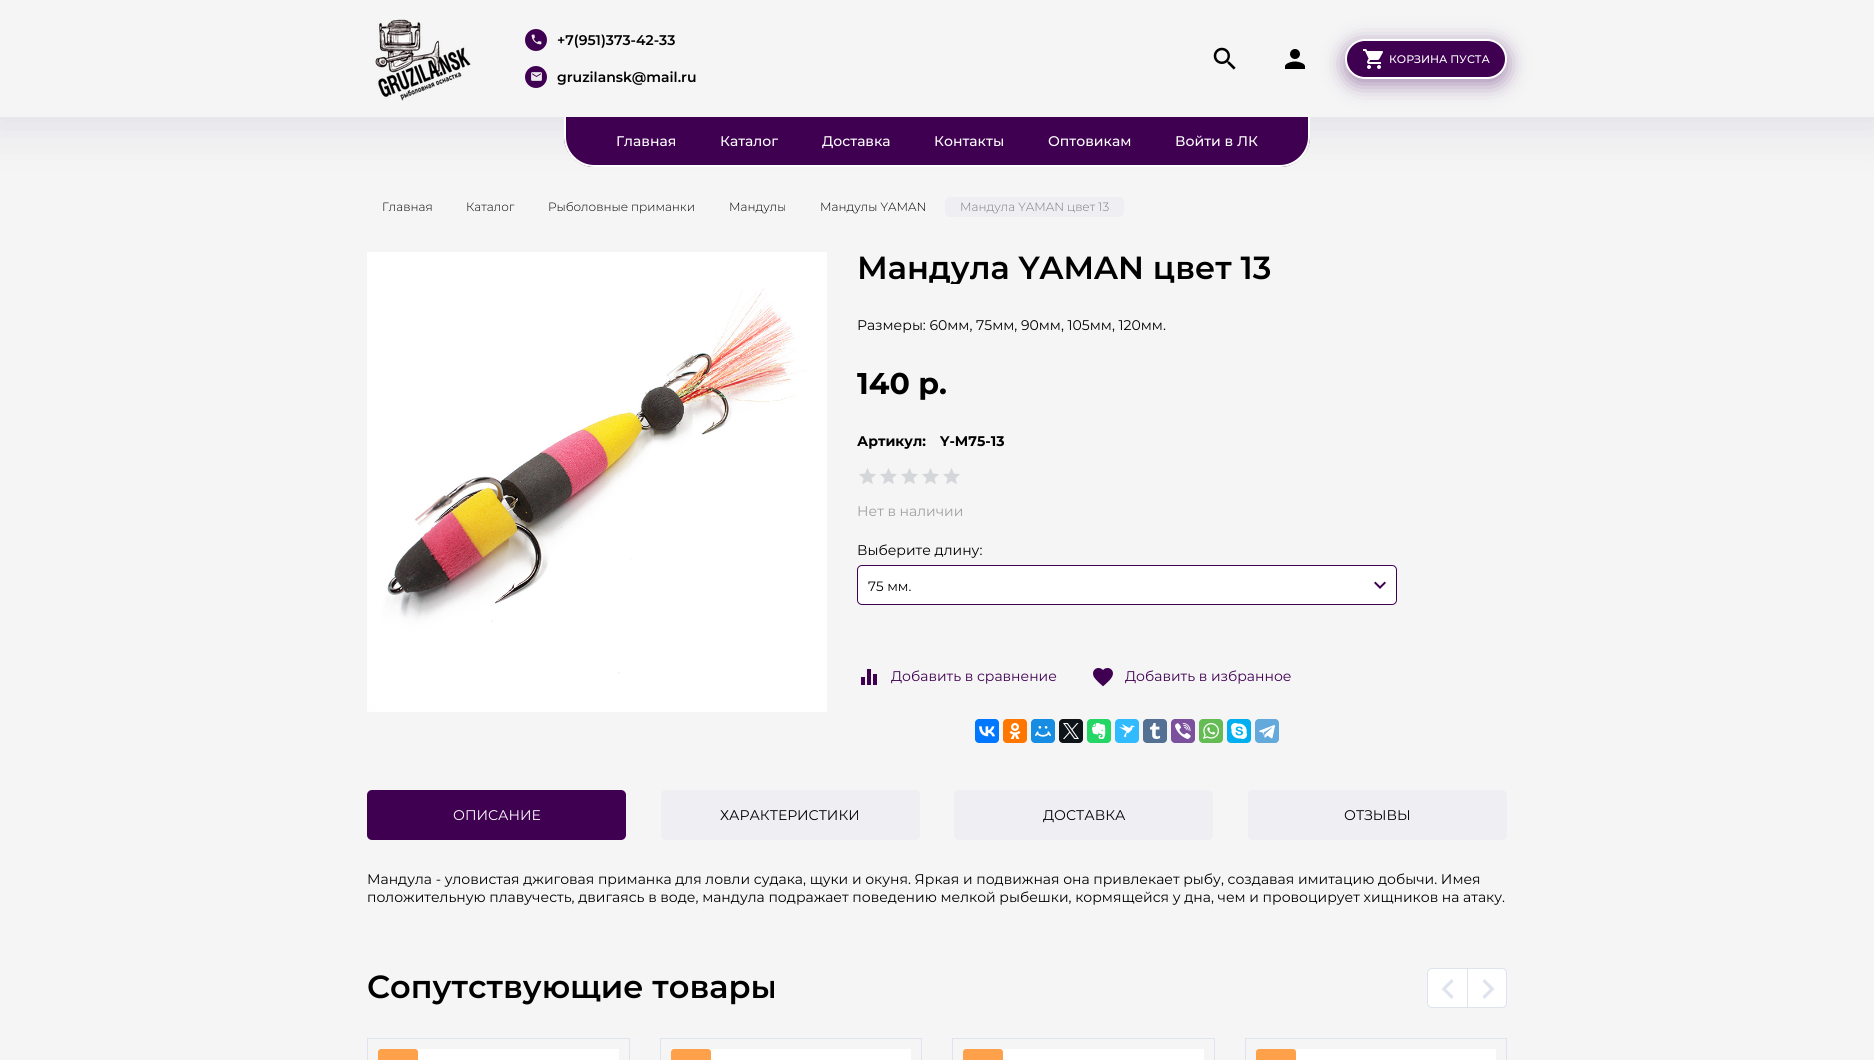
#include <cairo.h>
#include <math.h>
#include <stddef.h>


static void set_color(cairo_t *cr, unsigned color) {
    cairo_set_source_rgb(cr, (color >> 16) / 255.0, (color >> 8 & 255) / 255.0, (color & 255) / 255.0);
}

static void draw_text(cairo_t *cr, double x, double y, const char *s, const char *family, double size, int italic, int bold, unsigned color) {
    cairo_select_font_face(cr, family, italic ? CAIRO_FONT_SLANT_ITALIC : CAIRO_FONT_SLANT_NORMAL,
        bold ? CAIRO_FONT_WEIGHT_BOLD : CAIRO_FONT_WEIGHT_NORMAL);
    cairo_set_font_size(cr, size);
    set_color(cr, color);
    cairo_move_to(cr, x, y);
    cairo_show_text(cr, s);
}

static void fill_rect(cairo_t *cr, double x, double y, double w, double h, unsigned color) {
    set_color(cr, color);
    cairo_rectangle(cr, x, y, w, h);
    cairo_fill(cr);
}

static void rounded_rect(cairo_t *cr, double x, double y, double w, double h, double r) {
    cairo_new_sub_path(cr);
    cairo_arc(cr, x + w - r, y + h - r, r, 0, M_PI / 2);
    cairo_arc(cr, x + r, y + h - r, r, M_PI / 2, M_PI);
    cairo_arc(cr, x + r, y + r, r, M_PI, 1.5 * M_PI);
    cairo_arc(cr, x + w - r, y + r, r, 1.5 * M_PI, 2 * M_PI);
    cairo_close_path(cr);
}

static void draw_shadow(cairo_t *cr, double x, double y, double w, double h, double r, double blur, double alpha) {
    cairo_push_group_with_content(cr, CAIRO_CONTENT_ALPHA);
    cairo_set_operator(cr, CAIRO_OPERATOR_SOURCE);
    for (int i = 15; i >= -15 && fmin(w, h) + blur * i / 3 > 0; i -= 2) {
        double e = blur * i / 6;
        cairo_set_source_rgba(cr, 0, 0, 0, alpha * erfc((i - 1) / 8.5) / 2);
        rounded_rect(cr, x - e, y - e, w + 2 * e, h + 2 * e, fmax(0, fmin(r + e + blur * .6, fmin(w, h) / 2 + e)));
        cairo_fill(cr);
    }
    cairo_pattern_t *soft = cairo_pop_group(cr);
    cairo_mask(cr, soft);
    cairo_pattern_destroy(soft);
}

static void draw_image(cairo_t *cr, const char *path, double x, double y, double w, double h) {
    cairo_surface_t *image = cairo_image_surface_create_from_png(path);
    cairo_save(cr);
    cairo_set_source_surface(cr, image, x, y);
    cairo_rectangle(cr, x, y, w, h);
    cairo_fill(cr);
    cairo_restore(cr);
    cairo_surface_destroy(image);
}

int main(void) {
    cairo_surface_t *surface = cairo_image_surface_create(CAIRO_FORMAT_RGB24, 1874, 1060);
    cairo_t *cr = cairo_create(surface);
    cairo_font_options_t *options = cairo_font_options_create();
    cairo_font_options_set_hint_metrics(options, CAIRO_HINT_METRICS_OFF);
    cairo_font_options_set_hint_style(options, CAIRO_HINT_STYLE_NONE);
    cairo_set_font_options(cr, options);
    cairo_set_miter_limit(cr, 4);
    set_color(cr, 0xF5F5F5);
    cairo_paint(cr);
    cairo_save(cr);
    cairo_rectangle(cr, 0, 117, 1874, 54);
    cairo_clip(cr);
    set_color(cr, 0xD7D5E0);
    draw_shadow(cr, -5, 0, 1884, 127, 0, 23, 0.73);
    cairo_restore(cr);
    draw_image(cr, "assets/img1.png", 375, 19, 96, 82);
    set_color(cr, 0x3F0052);
    cairo_arc(cr, 536, 40, 11, 0, 2 * M_PI);
    cairo_fill(cr);
    draw_image(cr, "assets/img2.png", 531, 34, 11, 11);
    draw_text(cr, 557, 45, "+7(951)373-42-33", "Montserrat SemiBold", 14, 0, 0, 0x000000);
    set_color(cr, 0x3F0052);
    cairo_new_path(cr);
    cairo_arc(cr, 536, 77, 11, 0, 2 * M_PI);
    cairo_fill(cr);
    draw_image(cr, "assets/img3.png", 531, 72, 11, 9);
    draw_text(cr, 557, 82, "gruzilansk@mail.ru", "Montserrat SemiBold", 14, 0, 0, 0x000000);
    draw_image(cr, "assets/img4.png", 1213, 47, 23, 23);
    draw_image(cr, "assets/img5.png", 1285, 49, 20, 20);
    set_color(cr, 0x612C7B);
    draw_shadow(cr, 1345, 44, 162, 40, 20, 10.5, 0.56);
    set_color(cr, 0x3F0052);
    rounded_rect(cr, 1346, 40, 160, 38, 19);
    cairo_fill_preserve(cr);
    set_color(cr, 0xFFFFFF);
    cairo_stroke(cr);
    draw_image(cr, "assets/img6.png", 1363, 49, 20, 20);
    draw_text(cr, 1389, 63, "КОРЗИНА ПУСТА", "Montserrat Medium", 11, 0, 0, 0xFFFFFF);
    set_color(cr, 0x3F0052);
    cairo_new_path(cr);
    cairo_move_to(cr, 564, 117);
    cairo_line_to(cr, 1310, 117);
    cairo_line_to(cr, 1310, 137);
    cairo_curve_to(cr, 1310, 153.5, 1296.5, 167, 1280, 167);
    cairo_line_to(cr, 594, 167);
    cairo_curve_to(cr, 577.5, 167, 564, 153.5, 564, 137);
    cairo_close_path(cr);
    cairo_fill(cr);
    set_color(cr, 0xFFFFFF);
    cairo_set_fill_rule(cr, CAIRO_FILL_RULE_EVEN_ODD);
    cairo_new_path(cr);
    cairo_move_to(cr, 564, 117);
    cairo_line_to(cr, 1310, 117);
    cairo_line_to(cr, 1310, 137);
    cairo_curve_to(cr, 1310, 154, 1297, 167, 1280, 167);
    cairo_line_to(cr, 594, 167);
    cairo_curve_to(cr, 577, 167, 564, 154, 564, 137);
    cairo_close_path(cr);
    cairo_move_to(cr, 566, 117);
    cairo_line_to(cr, 1308, 117);
    cairo_line_to(cr, 1308, 137);
    cairo_curve_to(cr, 1308, 152, 1295, 165, 1280, 165);
    cairo_line_to(cr, 594, 165);
    cairo_curve_to(cr, 579, 165, 566, 152, 566, 137);
    cairo_close_path(cr);
    cairo_fill(cr);
    draw_text(cr, 616, 146, "Главная", "Montserrat Medium", 14, 0, 0, 0xFFFFFF);
    draw_text(cr, 720, 146, "Каталог", "Montserrat Medium", 14, 0, 0, 0xFFFFFF);
    draw_text(cr, 822, 146, "Доставка", "Montserrat Medium", 14, 0, 0, 0xFFFFFF);
    draw_text(cr, 934, 146, "Контакты", "Montserrat Medium", 14, 0, 0, 0xFFFFFF);
    draw_text(cr, 1048, 146, "Оптовикам", "Montserrat Medium", 14, 0, 0, 0xFFFFFF);
    draw_text(cr, 1175, 146, "Войти в ЛК", "Montserrat Medium", 14, 0, 0, 0xFFFFFF);
    draw_text(cr, 382, 211, "Главная", "Montserrat Light", 12, 0, 0, 0x000000);
    draw_text(cr, 466, 211, "Каталог", "Montserrat Light", 12, 0, 0, 0x000000);
    draw_text(cr, 548, 211, "Рыболовные приманки", "Montserrat Light", 12, 0, 0, 0x000000);
    draw_text(cr, 729, 211, "Мандулы", "Montserrat Light", 12, 0, 0, 0x000000);
    draw_text(cr, 820, 211, "Мандулы YAMAN", "Montserrat Light", 12, 0, 0, 0x000000);
    set_color(cr, 0xEFEEF2);
    rounded_rect(cr, 945, 197, 179, 20, 5);
    cairo_fill(cr);
    draw_text(cr, 960, 211, "Мандула YAMAN цвет 13", "Montserrat Light", 12, 0, 0, 0x7B7A7F);
    draw_image(cr, "assets/img7.png", 367, 252, 460, 460);
    cairo_save(cr);
    cairo_set_fill_rule(cr, CAIRO_FILL_RULE_WINDING);
    cairo_rectangle(cr, 857, 252, 540, 32);
    cairo_clip(cr);
    draw_text(cr, 857, 279, "Мандула YAMAN цвет 13", "Montserrat SemiBold", 32, 0, 0, 0x000000);
    cairo_restore(cr);
    draw_text(cr, 857, 330, "Размеры: 60мм, 75мм, 90мм, 105мм, 120мм.", "Montserrat", 14, 0, 0, 0x000000);
    draw_text(cr, 857, 394, "140 р.", "Montserrat", 30, 0, 1, 0x000000);
    draw_text(cr, 857, 446, "Артикул:", "Montserrat", 14, 0, 1, 0x000000);
    draw_text(cr, 940, 446, "Y-M75-13", "Montserrat", 14, 0, 1, 0x000000);
    draw_image(cr, "assets/img8.png", 859, 468, 101, 16);
    draw_text(cr, 857, 516, "Нет в наличии", "Montserrat", 14, 0, 0, 0x9FA0A3);
    draw_text(cr, 857, 555, "Выберите длину:", "Montserrat", 14, 0, 0, 0x000000);
    set_color(cr, 0xFFFFFF);
    rounded_rect(cr, 857.5, 565.5, 539, 39, 4.5);
    cairo_fill_preserve(cr);
    set_color(cr, 0x3F0052);
    cairo_set_line_width(cr, 1);
    cairo_stroke(cr);
    draw_text(cr, 868, 591, "75 мм.", "Montserrat", 13.5, 0, 0, 0x000000);
    draw_image(cr, "assets/img9.png", 1374, 581, 12, 8);
    draw_image(cr, "assets/img10.png", 861, 669, 16, 16);
    draw_text(cr, 891, 681, "Добавить в сравнение", "Montserrat", 14, 0, 0, 0x3F0052);
    draw_image(cr, "assets/img11.png", 1093, 668, 20, 19);
    draw_text(cr, 1125, 681, "Добавить в избранное", "Montserrat", 14, 0, 0, 0x3F0052);
    set_color(cr, 0x0077FF);
    rounded_rect(cr, 975, 719, 24, 24, 4);
    cairo_fill(cr);
    draw_image(cr, "assets/img12.png", 979, 726, 16, 11);
    set_color(cr, 0xFF7700);
    rounded_rect(cr, 1003, 719, 24, 24, 4);
    cairo_fill(cr);
    draw_image(cr, "assets/img13.png", 1009, 723, 12, 16);
    set_color(cr, 0x168DE2);
    rounded_rect(cr, 1031, 719, 24, 24, 4);
    cairo_fill(cr);
    draw_image(cr, "assets/img14.png", 1035, 726, 16, 11);
    set_color(cr, 0x0F1419);
    rounded_rect(cr, 1059, 719, 24, 24, 4);
    cairo_fill(cr);
    draw_image(cr, "assets/img15.png", 1063, 723, 16, 16);
    set_color(cr, 0x24D666);
    rounded_rect(cr, 1087, 719, 24, 24, 4);
    cairo_fill(cr);
    draw_image(cr, "assets/img16.png", 1092, 723, 14, 16);
    set_color(cr, 0x30BAFF);
    rounded_rect(cr, 1115, 719, 24, 24, 4);
    cairo_fill(cr);
    draw_image(cr, "assets/img17.png", 1119, 724, 16, 14);
    set_color(cr, 0x547093);
    rounded_rect(cr, 1143, 719, 24, 24, 4);
    cairo_fill(cr);
    draw_image(cr, "assets/img18.png", 1150, 723, 11, 16);
    set_color(cr, 0x7B519D);
    rounded_rect(cr, 1171, 719, 24, 24, 4);
    cairo_fill(cr);
    draw_image(cr, "assets/img19.png", 1175, 723, 16, 16);
    set_color(cr, 0x65BC54);
    rounded_rect(cr, 1199, 719, 24, 24, 4);
    cairo_fill(cr);
    draw_image(cr, "assets/img20.png", 1203, 723, 16, 16);
    set_color(cr, 0x00AFF0);
    rounded_rect(cr, 1227, 719, 24, 24, 4);
    cairo_fill(cr);
    draw_image(cr, "assets/img21.png", 1231, 723, 16, 16);
    set_color(cr, 0x64A9DC);
    rounded_rect(cr, 1255, 719, 24, 24, 4);
    cairo_fill(cr);
    draw_image(cr, "assets/img22.png", 1259, 725, 16, 14);
    set_color(cr, 0x3F0052);
    rounded_rect(cr, 367, 790, 259, 50, 5);
    cairo_fill(cr);
    draw_text(cr, 453, 820, "ОПИСАНИЕ", "Montserrat", 14, 0, 0, 0xFFFFFF);
    set_color(cr, 0xEFEEF2);
    rounded_rect(cr, 661, 790, 259, 50, 5);
    cairo_fill(cr);
    draw_text(cr, 720, 820, "ХАРАКТЕРИСТИКИ", "Montserrat", 14, 0, 0, 0x000000);
    set_color(cr, 0xEFEEF2);
    rounded_rect(cr, 954, 790, 259, 50, 5);
    cairo_fill(cr);
    draw_text(cr, 1043, 820, "ДОСТАВКА", "Montserrat", 14, 0, 0, 0x000000);
    set_color(cr, 0xEFEEF2);
    rounded_rect(cr, 1248, 790, 259, 50, 5);
    cairo_fill(cr);
    draw_text(cr, 1344, 820, "ОТЗЫВЫ", "Montserrat", 14, 0, 0, 0x000000);
    draw_text(cr, 367, 884, "Мандула - уловистая джиговая приманка для ловли судака, щуки и окуня. Яркая и подвижная она привлекает рыбу, создавая имитацию добычи. Имея", "Montserrat", 14, 0, 0, 0x000000);
    draw_text(cr, 367, 902, "положительную плавучесть, двигаясь в воде, мандула подражает поведению мелкой рыбешки, кормящейся у дна, чем и провоцирует хищников на атаку.", "Montserrat", 14, 0, 0, 0x000000);
    set_color(cr, 0xFFFFFF);
    cairo_new_path(cr);
    cairo_move_to(cr, 1432, 968);
    cairo_line_to(cr, 1467, 968);
    cairo_line_to(cr, 1467, 1008);
    cairo_line_to(cr, 1432, 1008);
    cairo_curve_to(cr, 1429, 1008, 1427, 1006, 1427, 1003);
    cairo_line_to(cr, 1427, 973);
    cairo_curve_to(cr, 1427, 970, 1429, 968, 1432, 968);
    cairo_close_path(cr);
    cairo_fill(cr);
    set_color(cr, 0xDEE3EE);
    cairo_new_path(cr);
    cairo_move_to(cr, 1432, 968);
    cairo_line_to(cr, 1467, 968);
    cairo_line_to(cr, 1467, 1008);
    cairo_line_to(cr, 1432, 1008);
    cairo_curve_to(cr, 1429, 1008, 1427, 1006, 1427, 1003);
    cairo_line_to(cr, 1427, 973);
    cairo_curve_to(cr, 1427, 970, 1429, 968, 1432, 968);
    cairo_close_path(cr);
    cairo_move_to(cr, 1432, 969);
    cairo_line_to(cr, 1467, 969);
    cairo_line_to(cr, 1467, 1007);
    cairo_line_to(cr, 1432, 1007);
    cairo_curve_to(cr, 1430, 1007, 1428, 1005, 1428, 1003);
    cairo_line_to(cr, 1428, 973);
    cairo_curve_to(cr, 1428, 971, 1430, 969, 1432, 969);
    cairo_close_path(cr);
    cairo_fill(cr);
    cairo_set_fill_rule(cr, CAIRO_FILL_RULE_WINDING);
    cairo_new_path(cr);
    cairo_move_to(cr, 1453.5, 996.5);
    cairo_line_to(cr, 1451.5, 999);
    cairo_line_to(cr, 1441.5, 989);
    cairo_line_to(cr, 1451.5, 979);
    cairo_line_to(cr, 1453.5, 981.5);
    cairo_line_to(cr, 1446, 989);
    cairo_close_path(cr);
    cairo_fill(cr);
    set_color(cr, 0xFFFFFF);
    cairo_new_path(cr);
    cairo_move_to(cr, 1467.5, 968.5);
    cairo_line_to(cr, 1502, 968.5);
    cairo_curve_to(cr, 1504.5, 968.5, 1506.5, 970.5, 1506.5, 973);
    cairo_line_to(cr, 1506.5, 1003);
    cairo_curve_to(cr, 1506.5, 1005.5, 1504.5, 1007.5, 1502, 1007.5);
    cairo_line_to(cr, 1467.5, 1007.5);
    cairo_close_path(cr);
    cairo_fill_preserve(cr);
    set_color(cr, 0xDEE3EE);
    cairo_stroke(cr);
    cairo_new_path(cr);
    cairo_move_to(cr, 1482.5, 996.5);
    cairo_line_to(cr, 1490, 989);
    cairo_line_to(cr, 1482.5, 981.5);
    cairo_line_to(cr, 1484.5, 979);
    cairo_line_to(cr, 1494.5, 989);
    cairo_line_to(cr, 1484.5, 999);
    cairo_close_path(cr);
    cairo_fill(cr);
    cairo_rectangle(cr, 367.5, 1038.5, 262, 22);
    cairo_stroke(cr);
    fill_rect(cr, 378, 1049, 241, 11, 0xFFFFFF);
    set_color(cr, 0xFFA14A);
    rounded_rect(cr, 378, 1049, 40, 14, 3);
    cairo_fill(cr);
    cairo_rectangle(cr, 660.5, 1038.5, 261, 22);
    set_color(cr, 0xDEE3EE);
    cairo_stroke(cr);
    fill_rect(cr, 671, 1049, 240, 11, 0xFFFFFF);
    set_color(cr, 0xFFA14A);
    rounded_rect(cr, 671, 1049, 40, 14, 3);
    cairo_fill(cr);
    cairo_rectangle(cr, 952.5, 1038.5, 262, 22);
    set_color(cr, 0xDEE3EE);
    cairo_stroke(cr);
    fill_rect(cr, 963, 1049, 241, 11, 0xFFFFFF);
    set_color(cr, 0xFFA14A);
    rounded_rect(cr, 963, 1049, 40, 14, 3);
    cairo_fill(cr);
    cairo_rectangle(cr, 1245.5, 1038.5, 261, 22);
    set_color(cr, 0xDEE3EE);
    cairo_stroke(cr);
    fill_rect(cr, 1256, 1049, 240, 11, 0xFFFFFF);
    set_color(cr, 0xFFA14A);
    rounded_rect(cr, 1256, 1049, 40, 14, 3);
    cairo_fill(cr);
    draw_text(cr, 367, 998, "Сопутствующие товары", "Montserrat SemiBold", 32, 0, 0, 0x000000);
    cairo_surface_write_to_png(surface, "output.png");
    cairo_font_options_destroy(options);
    cairo_destroy(cr);
    cairo_surface_destroy(surface);
    return 0;
}
